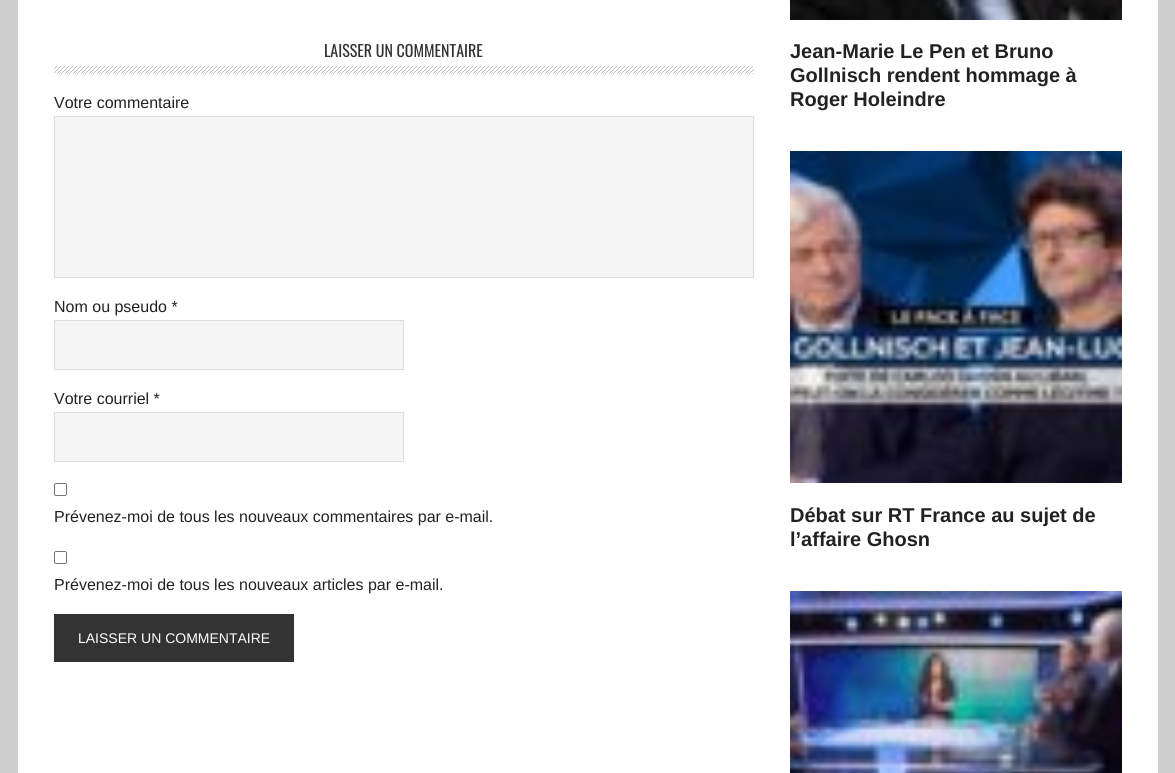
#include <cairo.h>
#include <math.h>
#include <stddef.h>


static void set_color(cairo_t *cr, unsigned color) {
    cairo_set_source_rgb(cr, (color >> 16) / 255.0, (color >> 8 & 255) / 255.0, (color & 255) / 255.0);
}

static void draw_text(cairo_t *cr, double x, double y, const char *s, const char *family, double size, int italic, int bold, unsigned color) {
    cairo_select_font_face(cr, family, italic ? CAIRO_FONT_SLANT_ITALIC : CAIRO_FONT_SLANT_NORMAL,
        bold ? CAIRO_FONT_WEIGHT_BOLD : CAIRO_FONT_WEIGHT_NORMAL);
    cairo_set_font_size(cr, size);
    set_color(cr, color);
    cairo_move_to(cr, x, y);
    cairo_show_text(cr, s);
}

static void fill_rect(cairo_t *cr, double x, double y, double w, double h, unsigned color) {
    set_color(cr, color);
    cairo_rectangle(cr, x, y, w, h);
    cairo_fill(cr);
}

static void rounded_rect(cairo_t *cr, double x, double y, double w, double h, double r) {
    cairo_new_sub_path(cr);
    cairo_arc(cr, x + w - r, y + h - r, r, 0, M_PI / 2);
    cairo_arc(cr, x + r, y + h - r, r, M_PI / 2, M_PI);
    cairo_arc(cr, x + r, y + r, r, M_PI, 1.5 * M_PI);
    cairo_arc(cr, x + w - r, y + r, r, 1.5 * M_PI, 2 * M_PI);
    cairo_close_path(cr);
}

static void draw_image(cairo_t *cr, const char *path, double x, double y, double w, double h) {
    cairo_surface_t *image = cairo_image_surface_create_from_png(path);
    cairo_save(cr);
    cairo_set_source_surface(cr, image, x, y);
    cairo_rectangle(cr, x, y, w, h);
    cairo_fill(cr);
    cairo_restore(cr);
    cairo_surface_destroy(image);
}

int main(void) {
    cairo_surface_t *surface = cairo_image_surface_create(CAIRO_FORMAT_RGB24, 1175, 773);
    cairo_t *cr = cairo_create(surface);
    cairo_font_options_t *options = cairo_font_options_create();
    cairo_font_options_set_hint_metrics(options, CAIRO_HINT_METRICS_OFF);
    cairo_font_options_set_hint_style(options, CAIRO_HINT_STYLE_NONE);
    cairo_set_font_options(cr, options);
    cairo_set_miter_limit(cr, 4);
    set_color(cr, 0xCFCFCF);
    cairo_paint(cr);
    fill_rect(cr, 18, 0, 1140, 773, 0xFFFFFF);
    draw_image(cr, "assets/img1.png", 54, 66, 700, 8);
    draw_text(cr, 324, 57, "LAISSER UN COMMENTAIRE", "Oswald", 16, 0, 0, 0x333333);
    draw_text(cr, 54, 108, "Votre commentaire", "Liberation Sans", 16, 0, 0, 0x222222);
    set_color(cr, 0xF5F5F5);
    cairo_rectangle(cr, 54.5, 116.5, 699, 161);
    cairo_fill_preserve(cr);
    set_color(cr, 0xDDDDDD);
    cairo_set_line_width(cr, 1);
    cairo_stroke(cr);
    draw_text(cr, 54, 312, "Nom ou pseudo *", "Liberation Sans", 16, 0, 0, 0x222222);
    set_color(cr, 0xF5F5F5);
    cairo_rectangle(cr, 54.5, 320.5, 349, 49);
    cairo_fill_preserve(cr);
    set_color(cr, 0xDDDDDD);
    cairo_stroke(cr);
    draw_text(cr, 54, 404, "Votre courriel *", "Liberation Sans", 16, 0, 0, 0x222222);
    set_color(cr, 0xF5F5F5);
    cairo_rectangle(cr, 54.5, 412.5, 349, 49);
    cairo_fill_preserve(cr);
    set_color(cr, 0xDDDDDD);
    cairo_stroke(cr);
    rounded_rect(cr, 54.5, 483.5, 12, 12, 1.5);
    set_color(cr, 0x767676);
    cairo_stroke(cr);
    draw_text(cr, 54, 522, "Prévenez-moi de tous les nouveaux commentaires par e-mail.", "Liberation Sans", 16, 0, 0, 0x222222);
    rounded_rect(cr, 54.5, 551.5, 12, 12, 1.5);
    set_color(cr, 0x767676);
    cairo_stroke(cr);
    draw_text(cr, 54, 590, "Prévenez-moi de tous les nouveaux articles par e-mail.", "Liberation Sans", 16, 0, 0, 0x222222);
    fill_rect(cr, 54, 614, 240, 48, 0x333333);
    draw_text(cr, 78, 643, "LAISSER UN COMMENTAIRE", "Liberation Sans", 14, 0, 0, 0xFFFFFF);
    draw_image(cr, "assets/img2.png", 790, 0, 332, 20);
    draw_text(cr, 790, 58, "Jean-Marie Le Pen et Bruno", "Liberation Sans", 20, 0, 1, 0x222222);
    draw_text(cr, 790, 82, "Gollnisch rendent hommage à", "Liberation Sans", 20, 0, 1, 0x222222);
    draw_text(cr, 790, 106, "Roger Holeindre", "Liberation Sans", 20, 0, 1, 0x222222);
    draw_image(cr, "assets/img3.png", 790, 151, 332, 332);
    draw_text(cr, 790, 522, "Débat sur RT France au sujet de", "Liberation Sans", 20, 0, 1, 0x222222);
    draw_text(cr, 790, 546, "l’affaire Ghosn", "Liberation Sans", 20, 0, 1, 0x222222);
    draw_image(cr, "assets/img4.png", 790, 591, 332, 182);
    cairo_surface_write_to_png(surface, "output.png");
    cairo_font_options_destroy(options);
    cairo_destroy(cr);
    cairo_surface_destroy(surface);
    return 0;
}
